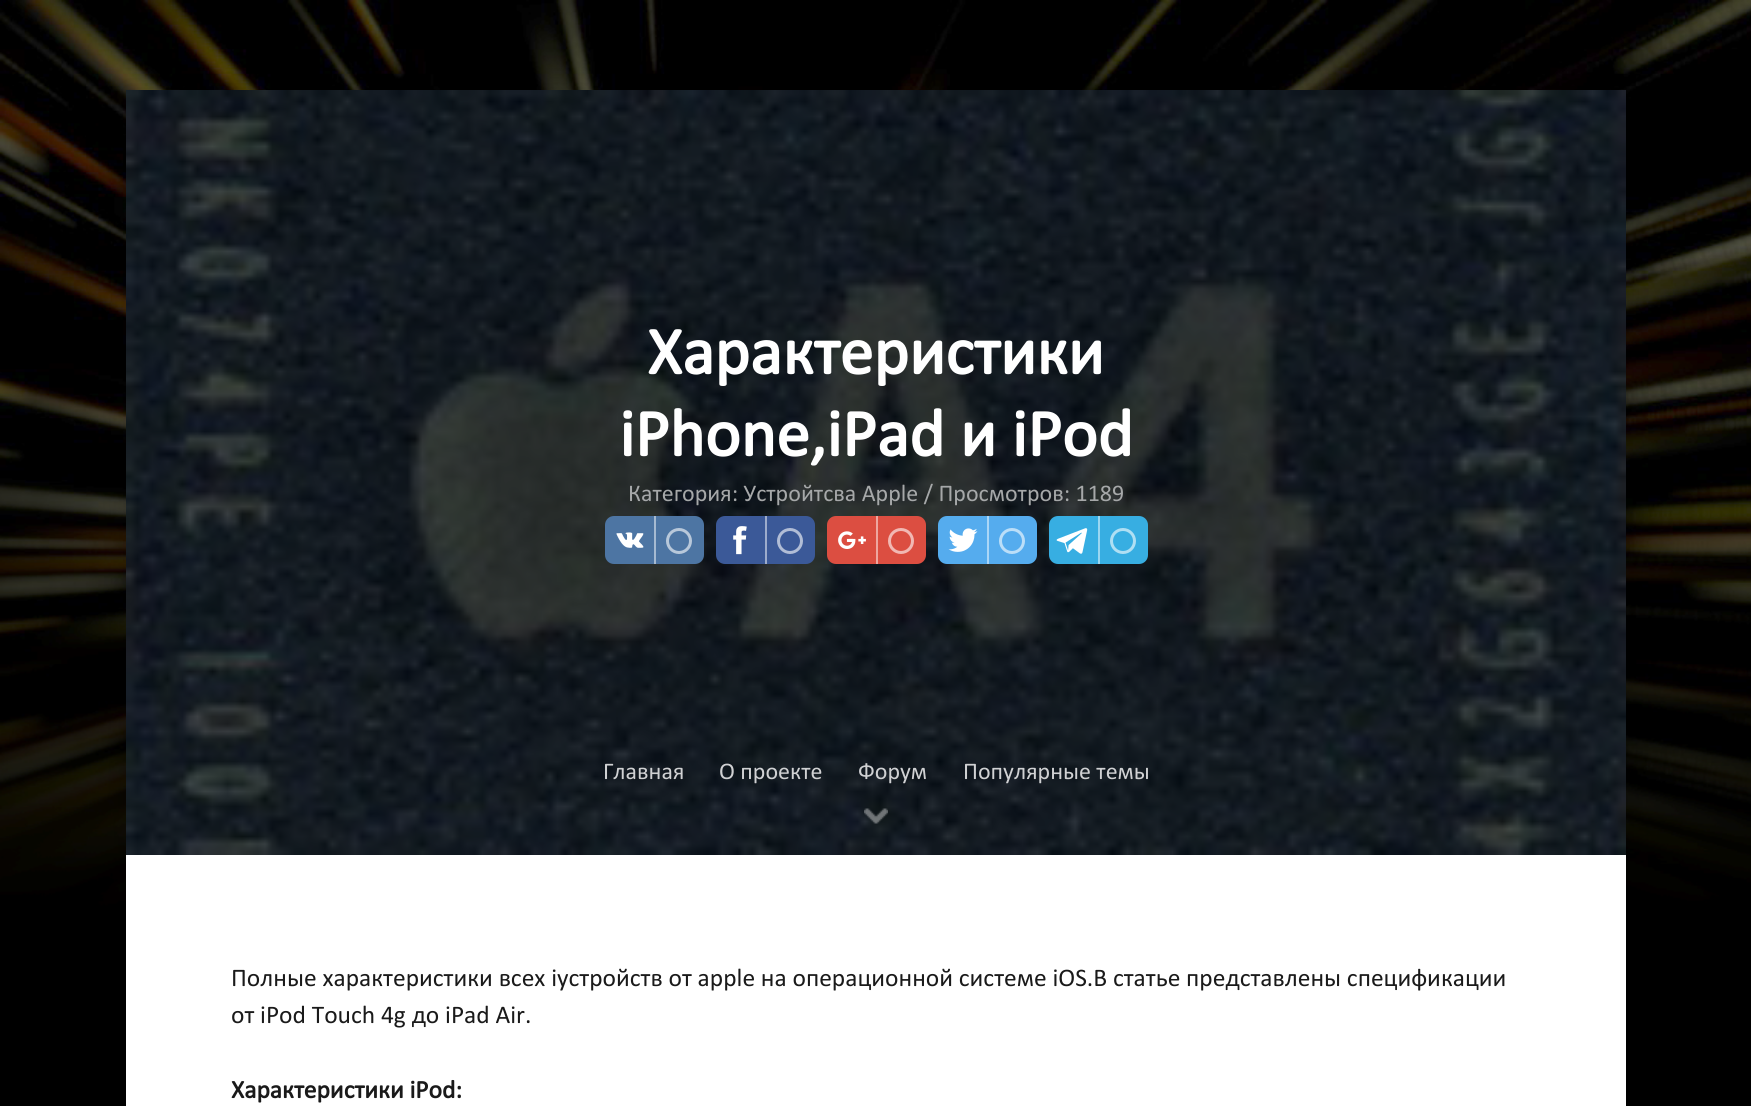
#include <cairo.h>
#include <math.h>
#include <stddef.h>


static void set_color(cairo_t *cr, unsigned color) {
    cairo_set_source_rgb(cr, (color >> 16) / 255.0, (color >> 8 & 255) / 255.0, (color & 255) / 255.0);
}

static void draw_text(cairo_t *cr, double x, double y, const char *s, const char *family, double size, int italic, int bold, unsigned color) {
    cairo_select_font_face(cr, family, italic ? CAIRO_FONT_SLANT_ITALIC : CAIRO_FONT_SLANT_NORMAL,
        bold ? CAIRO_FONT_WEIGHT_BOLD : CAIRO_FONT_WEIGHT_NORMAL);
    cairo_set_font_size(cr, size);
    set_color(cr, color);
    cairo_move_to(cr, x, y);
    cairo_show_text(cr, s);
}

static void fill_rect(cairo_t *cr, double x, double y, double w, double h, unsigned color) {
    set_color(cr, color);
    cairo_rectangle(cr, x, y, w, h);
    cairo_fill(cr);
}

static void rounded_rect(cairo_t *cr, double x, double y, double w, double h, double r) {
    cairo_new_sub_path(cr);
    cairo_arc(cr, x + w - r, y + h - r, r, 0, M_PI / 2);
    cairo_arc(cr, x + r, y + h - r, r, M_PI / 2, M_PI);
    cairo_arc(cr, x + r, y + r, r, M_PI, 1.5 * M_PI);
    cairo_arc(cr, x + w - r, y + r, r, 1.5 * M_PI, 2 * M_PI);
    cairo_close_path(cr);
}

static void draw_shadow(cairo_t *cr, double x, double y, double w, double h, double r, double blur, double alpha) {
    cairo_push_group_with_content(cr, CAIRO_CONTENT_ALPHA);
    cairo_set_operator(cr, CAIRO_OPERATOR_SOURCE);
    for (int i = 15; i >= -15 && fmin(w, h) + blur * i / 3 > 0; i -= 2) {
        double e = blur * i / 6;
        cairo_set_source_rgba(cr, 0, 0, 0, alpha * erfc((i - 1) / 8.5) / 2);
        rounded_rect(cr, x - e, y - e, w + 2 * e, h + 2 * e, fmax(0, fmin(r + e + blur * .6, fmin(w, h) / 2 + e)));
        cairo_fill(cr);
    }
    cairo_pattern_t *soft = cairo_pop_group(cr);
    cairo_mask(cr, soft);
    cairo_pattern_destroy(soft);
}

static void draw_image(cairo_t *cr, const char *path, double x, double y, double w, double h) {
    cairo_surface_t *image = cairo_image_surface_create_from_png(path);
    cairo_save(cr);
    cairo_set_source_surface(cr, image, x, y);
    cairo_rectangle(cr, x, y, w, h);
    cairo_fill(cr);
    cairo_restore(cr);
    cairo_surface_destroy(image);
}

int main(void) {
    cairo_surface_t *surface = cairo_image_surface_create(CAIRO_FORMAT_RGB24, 1751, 1106);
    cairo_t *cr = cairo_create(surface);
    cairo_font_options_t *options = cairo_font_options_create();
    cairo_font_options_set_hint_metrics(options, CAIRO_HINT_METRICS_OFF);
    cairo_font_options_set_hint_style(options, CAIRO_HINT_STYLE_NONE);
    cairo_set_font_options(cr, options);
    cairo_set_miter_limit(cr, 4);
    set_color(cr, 0xFFFFFF);
    cairo_paint(cr);
    draw_image(cr, "assets/img1.png", 0, 0, 1751, 1106);
    set_color(cr, 0x000000);
    draw_shadow(cr, 126, 90, 1500, 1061, 0, 15, 0.2);
    fill_rect(cr, 126, 855, 1500, 251, 0xFFFFFF);
    draw_image(cr, "assets/img2.png", 126, 90, 1500, 765);
    draw_text(cr, 647, 374, "Характеристики", "Calibri", 67.5, 0, 1, 0xFFFFFF);
    draw_text(cr, 619, 456, "iPhone,iPad и iPod", "Calibri", 67.5, 0, 1, 0xFFFFFF);
    draw_text(cr, 628, 501, "Категория: Устройтсва Apple / Просмотров: 1189", "Calibri", 24, 0, 0, 0xA6A8A9);
    set_color(cr, 0x4D75A3);
    rounded_rect(cr, 605, 516, 99, 48, 9);
    cairo_fill(cr);
    draw_image(cr, "assets/img3.png", 616, 532, 28, 16);
    fill_rect(cr, 654, 516, 2, 48, 0xA6BAD1);
    cairo_arc(cr, 679, 541, 11.5, 0, 2 * M_PI);
    set_color(cr, 0xB8C8DA);
    cairo_set_line_width(cr, 3);
    cairo_stroke(cr);
    set_color(cr, 0x3B5998);
    rounded_rect(cr, 716, 516, 99, 48, 9);
    cairo_fill(cr);
    draw_image(cr, "assets/img4.png", 733, 526, 14, 29);
    fill_rect(cr, 765, 516, 2, 48, 0x9DACCC);
    cairo_arc(cr, 790, 541, 11.5, 0, 2 * M_PI);
    set_color(cr, 0xB1BDD6);
    cairo_stroke(cr);
    set_color(cr, 0xDC4E41);
    rounded_rect(cr, 827, 516, 99, 48, 9);
    cairo_fill(cr);
    draw_image(cr, "assets/img5.png", 838, 531, 28, 18);
    fill_rect(cr, 876, 516, 2, 48, 0xEEA7A0);
    cairo_arc(cr, 901, 541, 11.5, 0, 2 * M_PI);
    set_color(cr, 0xF1B8B3);
    cairo_stroke(cr);
    set_color(cr, 0x55ACEE);
    rounded_rect(cr, 938, 516, 99, 48, 9);
    cairo_fill(cr);
    draw_image(cr, "assets/img6.png", 948, 528, 30, 24);
    fill_rect(cr, 987, 516, 2, 48, 0xAAD6F7);
    cairo_arc(cr, 1012, 541, 11.5, 0, 2 * M_PI);
    set_color(cr, 0xBBDEF8);
    cairo_stroke(cr);
    set_color(cr, 0x37AEE2);
    rounded_rect(cr, 1049, 516, 99, 48, 9);
    cairo_fill(cr);
    draw_image(cr, "assets/img7.png", 1056, 528, 32, 26);
    fill_rect(cr, 1098, 516, 2, 48, 0x9BD7F1);
    cairo_arc(cr, 1123, 541, 11.5, 0, 2 * M_PI);
    set_color(cr, 0xAFDFF3);
    cairo_stroke(cr);
    draw_text(cr, 603, 779, "Главная", "Calibri", 24, 0, 0, 0xD0D1D3);
    draw_text(cr, 719, 779, "О проекте", "Calibri", 24, 0, 0, 0xD0D1D3);
    draw_text(cr, 858, 779, "Форум", "Calibri", 24, 0, 0, 0xD0D1D3);
    draw_text(cr, 963, 779, "Популярные темы", "Calibri", 24, 0, 0, 0xD0D1D3);
    draw_image(cr, "assets/img8.png", 864, 808, 24, 16);
    draw_text(cr, 231, 986, "Полные характеристики всех iустройств от apple на операционной системе iOS.В статье представлены спецификации", "Calibri", 25.5, 0, 0, 0x1A1A1A);
    draw_text(cr, 231, 1023, "от iPod Touch 4g до iPad Air.", "Calibri", 25.5, 0, 0, 0x1A1A1A);
    draw_text(cr, 231, 1098, "Характеристики iPod:", "Calibri", 25.5, 0, 1, 0x1A1A1A);
    cairo_surface_write_to_png(surface, "output.png");
    cairo_font_options_destroy(options);
    cairo_destroy(cr);
    cairo_surface_destroy(surface);
    return 0;
}
